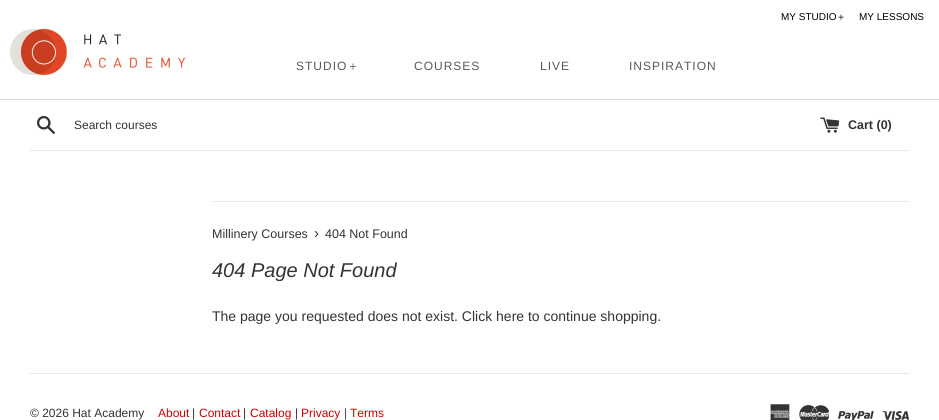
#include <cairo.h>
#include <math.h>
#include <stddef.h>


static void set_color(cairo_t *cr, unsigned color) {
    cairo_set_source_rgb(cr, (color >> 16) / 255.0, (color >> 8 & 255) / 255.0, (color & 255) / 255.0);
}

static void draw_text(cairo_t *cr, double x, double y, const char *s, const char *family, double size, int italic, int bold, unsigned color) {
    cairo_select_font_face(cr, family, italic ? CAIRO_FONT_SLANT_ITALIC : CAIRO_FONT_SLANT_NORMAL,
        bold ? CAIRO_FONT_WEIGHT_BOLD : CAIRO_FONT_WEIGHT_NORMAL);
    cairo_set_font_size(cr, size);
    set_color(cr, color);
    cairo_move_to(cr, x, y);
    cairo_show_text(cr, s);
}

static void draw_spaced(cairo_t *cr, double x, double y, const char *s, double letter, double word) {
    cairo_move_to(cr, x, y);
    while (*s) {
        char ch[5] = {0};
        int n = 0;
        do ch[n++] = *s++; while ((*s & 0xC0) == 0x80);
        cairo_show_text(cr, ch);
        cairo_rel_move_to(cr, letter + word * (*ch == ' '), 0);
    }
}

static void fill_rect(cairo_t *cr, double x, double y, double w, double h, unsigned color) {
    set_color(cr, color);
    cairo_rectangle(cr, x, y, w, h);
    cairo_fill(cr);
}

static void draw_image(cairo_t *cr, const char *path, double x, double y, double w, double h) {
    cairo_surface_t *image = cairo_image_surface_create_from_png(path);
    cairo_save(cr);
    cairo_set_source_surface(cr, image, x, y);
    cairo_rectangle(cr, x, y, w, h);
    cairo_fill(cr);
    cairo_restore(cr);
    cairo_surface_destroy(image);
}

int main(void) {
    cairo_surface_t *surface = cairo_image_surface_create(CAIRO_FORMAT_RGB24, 939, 420);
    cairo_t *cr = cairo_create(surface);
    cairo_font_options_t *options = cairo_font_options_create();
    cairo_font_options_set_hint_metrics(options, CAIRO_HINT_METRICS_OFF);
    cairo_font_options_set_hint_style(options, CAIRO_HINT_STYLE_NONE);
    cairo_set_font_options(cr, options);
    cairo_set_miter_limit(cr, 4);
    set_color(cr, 0xFFFFFF);
    cairo_paint(cr);
    draw_text(cr, 781, 20, "MY STUDIO", "Liberation Sans", 10, 0, 0, 0x000000);
    draw_text(cr, 836, 20, "＋", "WenQuanYi Zen Hei Medium", 10, 0, 0, 0x000000);
    draw_text(cr, 859, 20, "MY LESSONS", "Liberation Sans", 10, 0, 0, 0x000000);
    draw_image(cr, "assets/img1.png", 0, 21, 256, 62);
    cairo_set_font_size(cr, 12);
    set_color(cr, 0x595959);
    draw_spaced(cr, 296, 70, "STUDIO", 1, 0);
    cairo_select_font_face(cr, "WenQuanYi Zen Hei Medium", CAIRO_FONT_SLANT_NORMAL, CAIRO_FONT_WEIGHT_NORMAL);
    draw_spaced(cr, 347, 70, "＋", 1, 0);
    cairo_select_font_face(cr, "Liberation Sans", CAIRO_FONT_SLANT_NORMAL, CAIRO_FONT_WEIGHT_NORMAL);
    draw_spaced(cr, 414, 70, "COURSES", 1, 0);
    draw_spaced(cr, 540, 70, "LIVE", 1, 0);
    draw_spaced(cr, 629, 70, "INSPIRATION", 1, 0);
    fill_rect(cr, 0, 99, 939, 1, 0xDBDBDB);
    draw_image(cr, "assets/img2.png", 37, 116, 18, 18);
    draw_text(cr, 74, 129, "Search courses", "Liberation Sans", 12, 0, 0, 0x333333);
    draw_image(cr, "assets/img3.png", 820, 117, 20, 16);
    draw_text(cr, 848, 129, "Cart (0)", "Liberation Sans", 12.5, 0, 1, 0x333333);
    fill_rect(cr, 30, 150, 879, 1, 0xE8E8E8);
    fill_rect(cr, 212, 201, 697, 1, 0xE8E8E8);
    draw_text(cr, 212, 238, "Millinery Courses", "Liberation Sans", 12.5, 0, 0, 0x333333);
    draw_text(cr, 314, 238, "›", "Liberation Sans", 15, 0, 0, 0x333333);
    draw_text(cr, 325, 238, "404 Not Found", "Liberation Sans", 12.5, 0, 0, 0x333333);
    draw_text(cr, 212, 277, "404 Page Not Found", "Liberation Sans", 20, 1, 0, 0x333333);
    draw_text(cr, 212, 321, "The page you requested does not exist. Click here to continue shopping.", "Liberation Sans", 14, 0, 0, 0x333333);
    fill_rect(cr, 30, 373, 879, 1, 0xE8E8E8);
    draw_text(cr, 30, 417, "© 2026 Hat Academy", "Liberation Sans", 12, 0, 0, 0x333333);
    draw_text(cr, 158, 417, "About", "Liberation Sans", 12, 0, 0, 0xCC0000);
    draw_text(cr, 192, 417, "|", "Liberation Sans", 12, 0, 0, 0x333333);
    draw_text(cr, 199, 417, "Contact", "Liberation Sans", 12, 0, 0, 0xCC0000);
    draw_text(cr, 243, 417, "|", "Liberation Sans", 12, 0, 0, 0x333333);
    draw_text(cr, 250, 417, "Catalog", "Liberation Sans", 12, 0, 0, 0xCC0000);
    draw_text(cr, 295, 417, "|", "Liberation Sans", 12, 0, 0, 0x333333);
    draw_text(cr, 301, 417, "Privacy", "Liberation Sans", 12, 0, 0, 0xCC0000);
    draw_text(cr, 344, 417, "|", "Liberation Sans", 12, 0, 0, 0x444444);
    draw_text(cr, 350, 417, "Terms", "Liberation Sans", 12, 0, 0, 0xCC0000);
    draw_image(cr, "assets/img4.png", 770, 404, 20, 16);
    draw_image(cr, "assets/img5.png", 799, 405, 30, 15);
    draw_image(cr, "assets/img6.png", 838, 411, 36, 9);
    draw_image(cr, "assets/img7.png", 882, 411, 27, 9);
    cairo_surface_write_to_png(surface, "output.png");
    cairo_font_options_destroy(options);
    cairo_destroy(cr);
    cairo_surface_destroy(surface);
    return 0;
}
